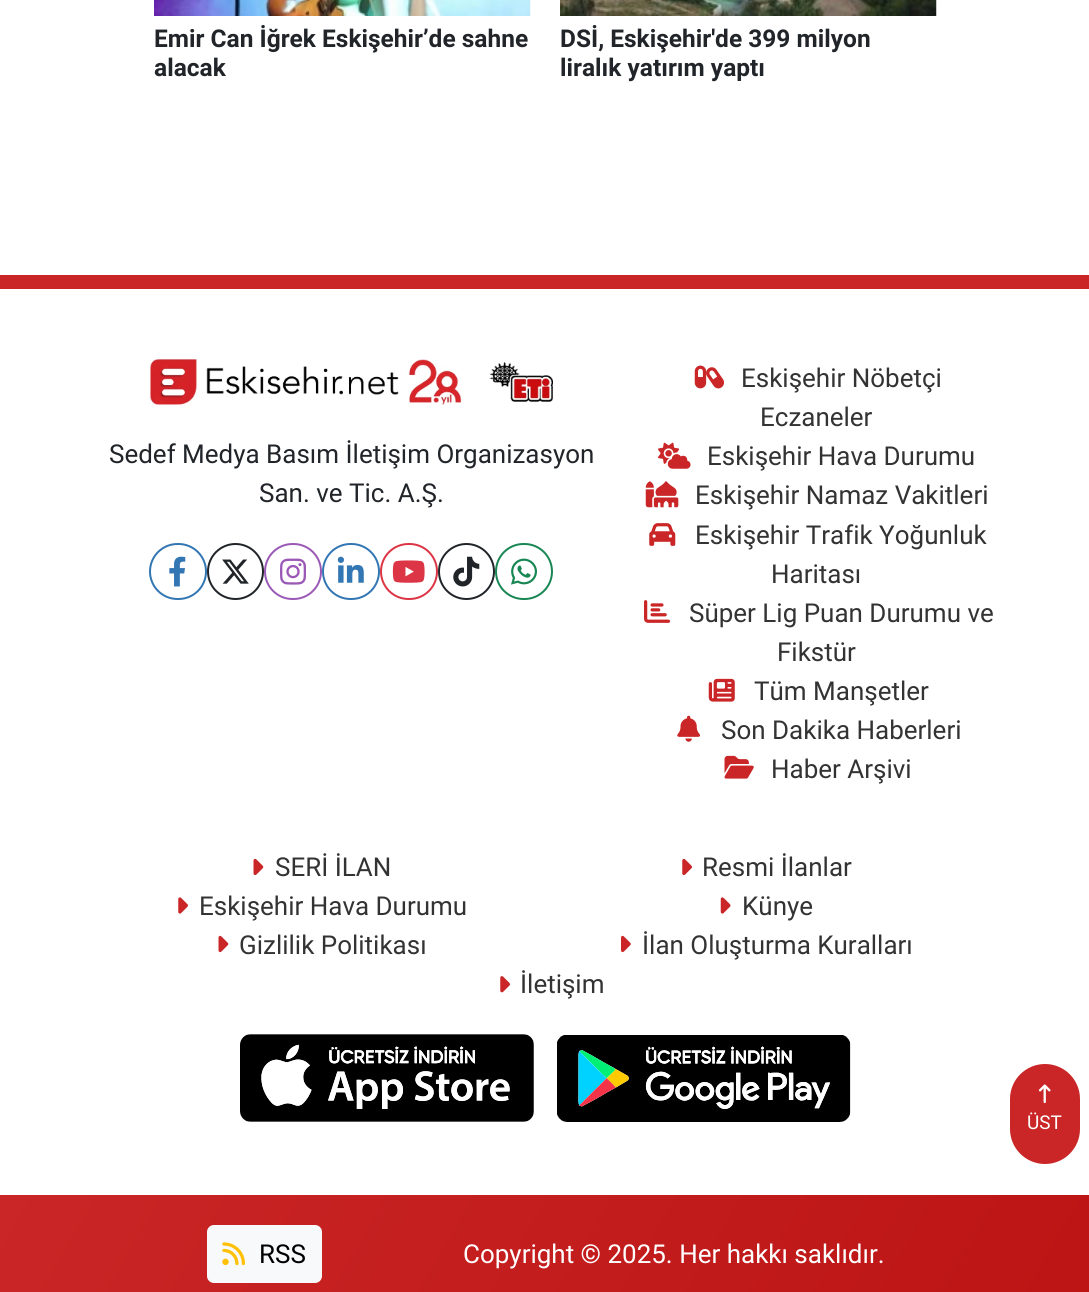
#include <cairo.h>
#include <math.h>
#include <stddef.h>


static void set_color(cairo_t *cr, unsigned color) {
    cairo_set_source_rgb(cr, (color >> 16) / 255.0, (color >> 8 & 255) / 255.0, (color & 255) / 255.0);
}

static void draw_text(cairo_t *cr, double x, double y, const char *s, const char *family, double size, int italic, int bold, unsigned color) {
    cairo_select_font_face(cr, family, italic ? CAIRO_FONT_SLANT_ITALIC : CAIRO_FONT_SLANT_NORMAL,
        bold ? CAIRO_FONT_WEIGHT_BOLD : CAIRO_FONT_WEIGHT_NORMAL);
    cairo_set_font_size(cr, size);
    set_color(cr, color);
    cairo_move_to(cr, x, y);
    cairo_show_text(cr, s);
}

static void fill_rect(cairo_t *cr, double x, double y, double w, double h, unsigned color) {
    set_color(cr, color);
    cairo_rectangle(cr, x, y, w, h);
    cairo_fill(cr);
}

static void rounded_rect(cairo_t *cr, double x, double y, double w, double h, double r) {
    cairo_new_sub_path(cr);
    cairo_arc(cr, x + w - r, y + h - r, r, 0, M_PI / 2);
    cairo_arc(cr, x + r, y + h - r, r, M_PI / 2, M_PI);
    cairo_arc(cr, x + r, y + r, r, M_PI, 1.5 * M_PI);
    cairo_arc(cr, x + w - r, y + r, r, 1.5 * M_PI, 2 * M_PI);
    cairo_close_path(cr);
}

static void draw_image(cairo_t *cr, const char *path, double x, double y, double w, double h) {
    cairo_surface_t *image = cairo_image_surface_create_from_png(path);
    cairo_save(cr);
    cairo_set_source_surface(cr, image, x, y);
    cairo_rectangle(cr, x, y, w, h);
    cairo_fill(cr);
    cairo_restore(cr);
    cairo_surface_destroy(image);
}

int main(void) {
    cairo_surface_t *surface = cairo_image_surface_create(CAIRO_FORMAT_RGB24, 1089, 1292);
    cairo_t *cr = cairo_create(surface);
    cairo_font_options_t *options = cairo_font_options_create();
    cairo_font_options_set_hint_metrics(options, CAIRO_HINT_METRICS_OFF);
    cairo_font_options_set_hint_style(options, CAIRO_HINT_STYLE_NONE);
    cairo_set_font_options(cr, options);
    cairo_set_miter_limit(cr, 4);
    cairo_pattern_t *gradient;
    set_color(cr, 0xFFFFFF);
    cairo_paint(cr);
    draw_image(cr, "assets/img1.png", 154, 0, 377, 16);
    draw_text(cr, 154, 47, "Emir Can İğrek Eskişehir’de sahne", "Roboto", 24.5, 0, 1, 0x212529);
    draw_text(cr, 154, 76, "alacak", "Roboto", 24.5, 0, 1, 0x212529);
    draw_image(cr, "assets/img2.png", 560, 0, 377, 16);
    draw_text(cr, 560, 47, "DSİ, Eskişehir'de 399 milyon", "Roboto", 24.5, 0, 1, 0x212529);
    draw_text(cr, 560, 76, "liralık yatırım yaptı", "Roboto", 24.5, 0, 1, 0x212529);
    fill_rect(cr, 0, 275, 1089, 14, 0xCA2627);
    draw_image(cr, "assets/img3.png", 150, 359, 403, 46);
    draw_text(cr, 109, 463, "Sedef Medya Basım İletişim Organizasyon", "Roboto", 26, 0, 0, 0x212529);
    draw_text(cr, 259, 502, "San. ve Tic. A.Ş.", "Roboto", 26, 0, 0, 0x212529);
    rounded_rect(cr, 150, 544, 56, 55, 27.5);
    set_color(cr, 0x3276B3);
    cairo_stroke(cr);
    draw_image(cr, "assets/img4.png", 169, 556, 17, 31);
    cairo_arc(cr, 235.5, 571.5, 27.5, 0, 2 * M_PI);
    set_color(cr, 0x212529);
    cairo_stroke(cr);
    draw_image(cr, "assets/img5.png", 222, 559, 27, 25);
    rounded_rect(cr, 265, 544, 56, 55, 27.5);
    set_color(cr, 0x9B59B6);
    cairo_stroke(cr);
    draw_image(cr, "assets/img6.png", 280, 558, 27, 27);
    rounded_rect(cr, 323, 544, 56, 55, 27.5);
    set_color(cr, 0x3276B3);
    cairo_stroke(cr);
    draw_image(cr, "assets/img7.png", 337, 556, 27, 27);
    rounded_rect(cr, 381, 544, 56, 55, 27.5);
    set_color(cr, 0xDC3545);
    cairo_stroke(cr);
    draw_image(cr, "assets/img8.png", 392, 560, 33, 23);
    cairo_arc(cr, 466.5, 571.5, 27.5, 0, 2 * M_PI);
    set_color(cr, 0x212529);
    cairo_stroke(cr);
    draw_image(cr, "assets/img9.png", 453, 556, 27, 31);
    rounded_rect(cr, 496, 544, 56, 55, 27.5);
    set_color(cr, 0x198754);
    cairo_stroke(cr);
    draw_image(cr, "assets/img10.png", 511, 558, 26, 27);
    draw_image(cr, "assets/img11.png", 694, 365, 30, 24);
    draw_text(cr, 741, 387, "Eskişehir Nöbetçi", "Roboto", 26, 0, 0, 0x333333);
    draw_text(cr, 760, 426, "Eczaneler", "Roboto", 26, 0, 0, 0x333333);
    draw_image(cr, "assets/img12.png", 658, 442, 33, 27);
    draw_text(cr, 707, 465, "Eskişehir Hava Durumu", "Roboto", 26, 0, 0, 0x333333);
    draw_image(cr, "assets/img13.png", 645, 481, 34, 27);
    draw_text(cr, 695, 504, "Eskişehir Namaz Vakitleri", "Roboto", 26, 0, 0, 0x333333);
    draw_image(cr, "assets/img14.png", 649, 523, 27, 23);
    draw_text(cr, 695, 544, "Eskişehir Trafik Yoğunluk", "Roboto", 26, 0, 0, 0x333333);
    draw_text(cr, 771, 583, "Haritası", "Roboto", 26, 0, 0, 0x333333);
    draw_image(cr, "assets/img15.png", 644, 600, 26, 23);
    draw_text(cr, 689, 622, "Süper Lig Puan Durumu ve", "Roboto", 26, 0, 0, 0x333333);
    draw_text(cr, 777, 661, "Fikstür", "Roboto", 26, 0, 0, 0x333333);
    draw_image(cr, "assets/img16.png", 708, 678, 27, 24);
    draw_text(cr, 754, 700, "Tüm Manşetler", "Roboto", 26, 0, 0, 0x333333);
    draw_image(cr, "assets/img17.png", 677, 715, 23, 27);
    draw_text(cr, 721, 739, "Son Dakika Haberleri", "Roboto", 26, 0, 0, 0x333333);
    draw_image(cr, "assets/img18.png", 724, 755, 30, 24);
    draw_text(cr, 771, 778, "Haber Arşivi", "Roboto", 26, 0, 0, 0x333333);
    draw_image(cr, "assets/img19.png", 253, 858, 11, 18);
    draw_text(cr, 275, 876, "SERİ İLAN", "Roboto", 26, 0, 0, 0x333333);
    draw_image(cr, "assets/img20.png", 682, 858, 10, 18);
    draw_text(cr, 702, 876, "Resmi İlanlar", "Roboto", 26, 0, 0, 0x333333);
    draw_image(cr, "assets/img21.png", 178, 897, 10, 17);
    draw_text(cr, 199, 915, "Eskişehir Hava Durumu", "Roboto", 26, 0, 0, 0x333333);
    draw_image(cr, "assets/img22.png", 720, 897, 11, 17);
    draw_text(cr, 742, 915, "Künye", "Roboto", 26, 0, 0, 0x333333);
    draw_image(cr, "assets/img19.png", 218, 935, 11, 18);
    draw_text(cr, 239, 954, "Gizlilik Politikası", "Roboto", 26, 0, 0, 0x333333);
    draw_image(cr, "assets/img23.png", 621, 935, 10, 18);
    draw_text(cr, 642, 954, "İlan Oluşturma Kuralları", "Roboto", 26, 0, 0, 0x333333);
    draw_image(cr, "assets/img24.png", 500, 976, 10, 17);
    draw_text(cr, 520, 993, "İletişim", "Roboto", 26, 0, 0, 0x333333);
    draw_image(cr, "assets/img25.png", 240, 1034, 294, 88);
    draw_image(cr, "assets/img26.png", 557, 1035, 294, 87);
    gradient = cairo_pattern_create_linear(89, 1041, 1001, 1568);
    cairo_pattern_add_color_stop_rgba(gradient, 0, 0.792, 0.149, 0.153, 1);
    cairo_pattern_add_color_stop_rgba(gradient, 1, 0.737, 0.075, 0.075, 1);
    cairo_set_source(cr, gradient);
    cairo_pattern_destroy(gradient);
    cairo_rectangle(cr, 0, 1195, 1089, 97);
    cairo_fill(cr);
    set_color(cr, 0xF8F9FA);
    rounded_rect(cr, 208, 1226, 113, 56, 6);
    cairo_fill_preserve(cr);
    cairo_stroke(cr);
    draw_image(cr, "assets/img27.png", 222, 1242, 23, 24);
    draw_text(cr, 259, 1263, "RSS", "Roboto", 26, 0, 0, 0x000000);
    draw_text(cr, 463, 1263, "Copyright © 2025. Her hakkı saklıdır.", "Roboto", 26, 0, 0, 0xFFFFFF);
    set_color(cr, 0xCA2627);
    rounded_rect(cr, 1010, 1064, 70, 100, 35);
    cairo_fill(cr);
    draw_image(cr, "assets/img28.png", 1038, 1084, 13, 20);
    draw_text(cr, 1027, 1129, "ÜST", "Roboto", 19, 0, 0, 0xFFFFFF);
    cairo_surface_write_to_png(surface, "output.png");
    cairo_font_options_destroy(options);
    cairo_destroy(cr);
    cairo_surface_destroy(surface);
    return 0;
}
